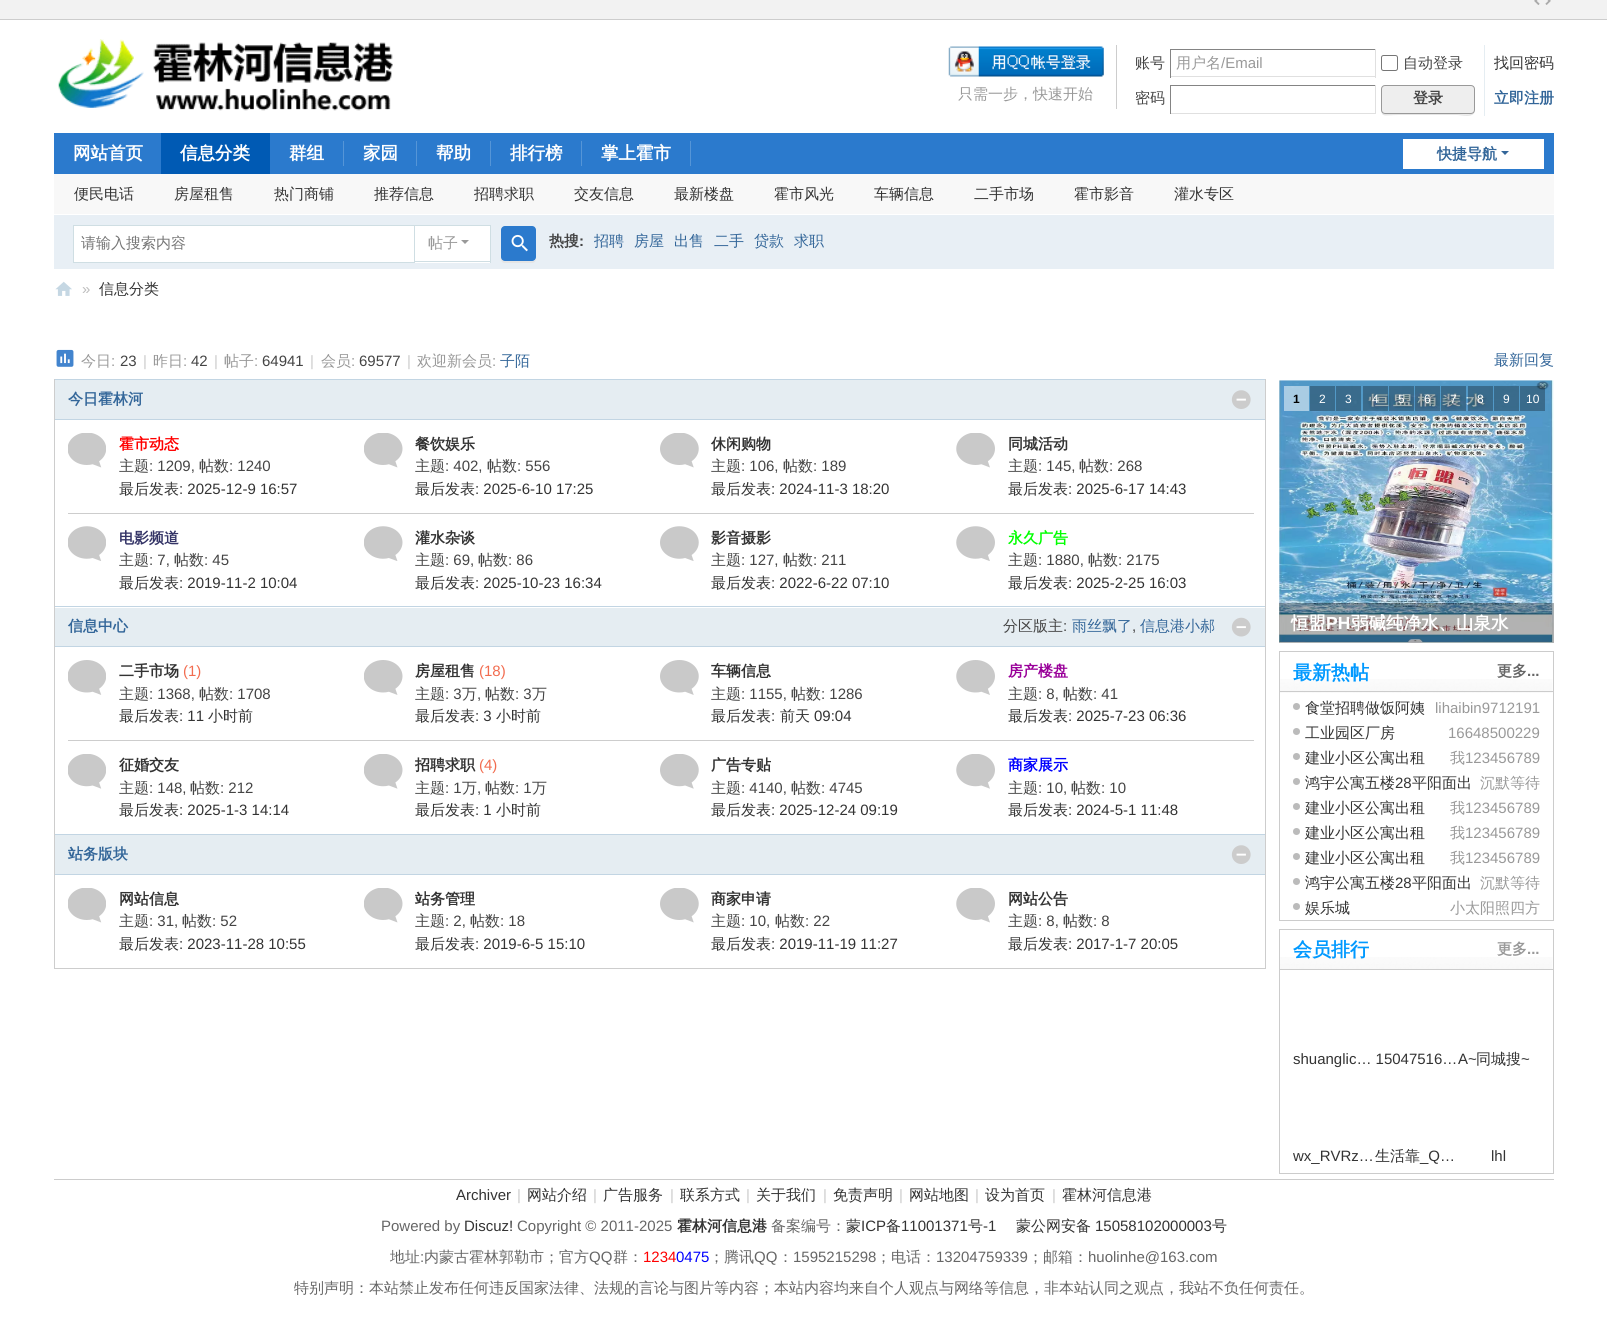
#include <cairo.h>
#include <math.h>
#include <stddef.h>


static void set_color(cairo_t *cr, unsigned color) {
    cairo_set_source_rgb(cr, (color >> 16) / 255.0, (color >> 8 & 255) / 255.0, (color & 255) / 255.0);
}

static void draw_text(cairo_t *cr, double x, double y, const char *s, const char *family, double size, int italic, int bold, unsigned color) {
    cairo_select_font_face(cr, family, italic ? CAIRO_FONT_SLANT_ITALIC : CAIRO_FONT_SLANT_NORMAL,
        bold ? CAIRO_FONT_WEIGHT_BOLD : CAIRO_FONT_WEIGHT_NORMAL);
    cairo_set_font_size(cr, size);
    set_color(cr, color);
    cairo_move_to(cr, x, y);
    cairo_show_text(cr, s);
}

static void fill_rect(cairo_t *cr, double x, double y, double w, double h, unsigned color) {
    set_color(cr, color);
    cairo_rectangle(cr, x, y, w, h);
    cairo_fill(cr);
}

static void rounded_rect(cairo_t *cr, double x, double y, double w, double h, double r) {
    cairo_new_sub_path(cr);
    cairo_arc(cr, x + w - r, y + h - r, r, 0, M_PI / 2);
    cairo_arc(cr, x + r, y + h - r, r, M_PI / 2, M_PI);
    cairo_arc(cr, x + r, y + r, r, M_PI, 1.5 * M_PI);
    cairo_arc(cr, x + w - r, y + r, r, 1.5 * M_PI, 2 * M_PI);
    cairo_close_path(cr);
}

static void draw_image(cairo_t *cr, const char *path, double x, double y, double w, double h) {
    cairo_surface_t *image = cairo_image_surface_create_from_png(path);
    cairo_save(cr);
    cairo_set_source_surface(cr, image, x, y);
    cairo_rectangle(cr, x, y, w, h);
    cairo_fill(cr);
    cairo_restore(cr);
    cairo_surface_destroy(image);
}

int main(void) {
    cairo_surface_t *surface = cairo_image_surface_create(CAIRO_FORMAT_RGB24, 1607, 1332);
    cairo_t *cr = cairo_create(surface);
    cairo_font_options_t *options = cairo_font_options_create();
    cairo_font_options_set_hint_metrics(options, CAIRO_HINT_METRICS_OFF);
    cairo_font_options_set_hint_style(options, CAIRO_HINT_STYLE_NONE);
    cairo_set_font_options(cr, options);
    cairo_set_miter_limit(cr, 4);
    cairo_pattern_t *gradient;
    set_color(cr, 0xFFFFFF);
    cairo_paint(cr);
    fill_rect(cr, 0, 0, 1607, 19, 0xF2F2F2);
    fill_rect(cr, 0, 19, 1607, 1, 0xCDCDCD);
    draw_image(cr, "assets/img1.png", 1534, 0, 17, 5);
    draw_image(cr, "assets/img2.png", 58, 39, 335, 72);
    fill_rect(cr, 1116, 45, 1, 64, 0xCDCDCD);
    draw_image(cr, "assets/img3.png", 948, 46, 156, 31);
    draw_text(cr, 958, 99, "只需一步，快速开始", "WenQuanYi Zen Hei Medium", 15, 0, 0, 0x999999);
    draw_text(cr, 1135, 68, "账号", "WenQuanYi Zen Hei Medium", 15, 0, 0, 0x444444);
    fill_rect(cr, 1170, 49, 206, 1, 0x848484);
    fill_rect(cr, 1375, 49, 1, 29, 0xE0E0E0);
    fill_rect(cr, 1170, 76, 206, 1, 0xE0E0E0);
    fill_rect(cr, 1170, 49, 1, 29, 0x848484);
    draw_text(cr, 1176, 68, "用户名", "WenQuanYi Zen Hei Medium", 15, 0, 0, 0x999999);
    draw_text(cr, 1221, 68, "/Email", "Liberation Sans", 15, 0, 0, 0x999999);
    rounded_rect(cr, 1381.5, 55.5, 16, 15, 2);
    set_color(cr, 0x767676);
    cairo_set_line_width(cr, 1);
    cairo_stroke(cr);
    draw_text(cr, 1403, 68, "自动登录", "WenQuanYi Zen Hei Medium", 15, 0, 0, 0x444444);
    draw_text(cr, 1494, 68, "找回密码", "WenQuanYi Zen Hei Medium", 15, 0, 0, 0x333333);
    draw_text(cr, 1135, 103, "密码", "WenQuanYi Zen Hei Medium", 15, 0, 0, 0x444444);
    fill_rect(cr, 1170, 85, 206, 1, 0x848484);
    fill_rect(cr, 1375, 85, 1, 29, 0xE0E0E0);
    fill_rect(cr, 1170, 113, 206, 1, 0xE0E0E0);
    fill_rect(cr, 1170, 85, 1, 29, 0x848484);
    fill_rect(cr, 1484, 45, 1, 71, 0xE5EDF2);
    set_color(cr, 0xE5E5E5);
    cairo_new_path(cr);
    cairo_move_to(cr, 1381, 89);
    cairo_line_to(cr, 1381, 104);
    cairo_curve_to(cr, 1381, 119, 1382, 115, 1399, 115);
    cairo_line_to(cr, 1457, 115);
    cairo_curve_to(cr, 1461, 115, 1475, 119, 1475, 110);
    cairo_curve_to(cr, 1475, 116, 1464, 114, 1457, 114);
    cairo_line_to(cr, 1385, 114);
    cairo_curve_to(cr, 1381, 114, 1381, 109, 1381, 106);
    cairo_close_path(cr);
    cairo_fill(cr);
    set_color(cr, 0xEEEEEE);
    rounded_rect(cr, 1381.5, 85.5, 93, 28, 3.5);
    cairo_fill_preserve(cr);
    set_color(cr, 0x999999);
    cairo_stroke(cr);
    draw_text(cr, 1413, 103, "登录", "WenQuanYi Zen Hei", 15, 0, 1, 0x444444);
    draw_text(cr, 1494, 103, "立即注册", "WenQuanYi Zen Hei", 15, 0, 1, 0x336699);
    fill_rect(cr, 54, 133, 1500, 41, 0x2B7ACD);
    draw_text(cr, 73, 159, "网站首页", "WenQuanYi Zen Hei", 17.5, 0, 1, 0xFFFFFF);
    fill_rect(cr, 161, 133, 109, 41, 0x005AB4);
    draw_text(cr, 180, 159, "信息分类", "WenQuanYi Zen Hei", 17.5, 0, 1, 0xFFFFFF);
    fill_rect(cr, 343, 141, 1, 25, 0x5595D7);
    draw_text(cr, 289, 159, "群组", "WenQuanYi Zen Hei", 17.5, 0, 1, 0xFFFFFF);
    fill_rect(cr, 416, 141, 1, 25, 0x5595D7);
    draw_text(cr, 363, 159, "家园", "WenQuanYi Zen Hei", 17.5, 0, 1, 0xFFFFFF);
    fill_rect(cr, 490, 141, 1, 25, 0x5595D7);
    draw_text(cr, 436, 159, "帮助", "WenQuanYi Zen Hei", 17.5, 0, 1, 0xFFFFFF);
    fill_rect(cr, 581, 141, 1, 25, 0x5595D7);
    draw_text(cr, 510, 159, "排行榜", "WenQuanYi Zen Hei", 17.5, 0, 1, 0xFFFFFF);
    fill_rect(cr, 690, 141, 1, 25, 0x5595D7);
    draw_text(cr, 601, 159, "掌上霍市", "WenQuanYi Zen Hei", 17.5, 0, 1, 0xFFFFFF);
    fill_rect(cr, 1403, 139, 141, 30, 0xFFFFFF);
    draw_text(cr, 1437, 159, "快捷导航", "WenQuanYi Zen Hei", 15, 0, 1, 0x336699);
    cairo_new_path(cr);
    cairo_move_to(cr, 1501, 151);
    cairo_line_to(cr, 1509, 151);
    cairo_line_to(cr, 1505, 155);
    cairo_close_path(cr);
    cairo_fill(cr);
    fill_rect(cr, 54, 174, 1500, 40, 0xF8F8F8);
    draw_text(cr, 74, 199, "便民电话", "WenQuanYi Zen Hei Medium", 15, 0, 0, 0x333333);
    draw_text(cr, 174, 199, "房屋租售", "WenQuanYi Zen Hei Medium", 15, 0, 0, 0x333333);
    draw_text(cr, 274, 199, "热门商铺", "WenQuanYi Zen Hei Medium", 15, 0, 0, 0x333333);
    draw_text(cr, 374, 199, "推荐信息", "WenQuanYi Zen Hei Medium", 15, 0, 0, 0x333333);
    draw_text(cr, 474, 199, "招聘求职", "WenQuanYi Zen Hei Medium", 15, 0, 0, 0x333333);
    draw_text(cr, 574, 199, "交友信息", "WenQuanYi Zen Hei Medium", 15, 0, 0, 0x333333);
    draw_text(cr, 674, 199, "最新楼盘", "WenQuanYi Zen Hei Medium", 15, 0, 0, 0x333333);
    draw_text(cr, 774, 199, "霍市风光", "WenQuanYi Zen Hei Medium", 15, 0, 0, 0x333333);
    draw_text(cr, 874, 199, "车辆信息", "WenQuanYi Zen Hei Medium", 15, 0, 0, 0x333333);
    draw_text(cr, 974, 199, "二手市场", "WenQuanYi Zen Hei Medium", 15, 0, 0, 0x333333);
    draw_text(cr, 1074, 199, "霍市影音", "WenQuanYi Zen Hei Medium", 15, 0, 0, 0x333333);
    draw_text(cr, 1174, 199, "灌水专区", "WenQuanYi Zen Hei Medium", 15, 0, 0, 0x333333);
    fill_rect(cr, 54, 215, 1500, 54, 0xE8EFF5);
    fill_rect(cr, 413, 225, 78, 1, 0xCFDEE3);
    fill_rect(cr, 415, 226, 75, 37, 0xFFFFFF);
    fill_rect(cr, 490, 225, 1, 38, 0xCFDEE3);
    fill_rect(cr, 413, 261, 78, 1, 0xCFDEE3);
    set_color(cr, 0xFFFFFF);
    cairo_rectangle(cr, 73.5, 225.5, 341, 37);
    cairo_fill_preserve(cr);
    set_color(cr, 0xCFDEE3);
    cairo_stroke(cr);
    draw_text(cr, 81, 248, "请输入搜索内容", "WenQuanYi Zen Hei Medium", 15, 0, 0, 0x757575);
    draw_text(cr, 428, 248, "帖子", "WenQuanYi Zen Hei Medium", 15, 0, 0, 0x999999);
    cairo_new_path(cr);
    cairo_move_to(cr, 461, 240);
    cairo_line_to(cr, 469, 240);
    cairo_line_to(cr, 465, 244);
    cairo_close_path(cr);
    cairo_fill(cr);
    set_color(cr, 0xE5E5E5);
    cairo_new_path(cr);
    cairo_move_to(cr, 501, 230.5);
    cairo_line_to(cr, 501, 254.5);
    cairo_curve_to(cr, 501, 257.5, 500, 262, 504, 263);
    cairo_line_to(cr, 532, 263);
    cairo_curve_to(cr, 534.5, 263, 536, 261, 536, 259);
    cairo_curve_to(cr, 535.5, 260.5, 534, 261, 532.5, 261);
    cairo_line_to(cr, 505, 261);
    cairo_curve_to(cr, 503, 261, 501, 259.5, 501, 257.5);
    cairo_close_path(cr);
    cairo_fill(cr);
    set_color(cr, 0x2B7ACD);
    rounded_rect(cr, 501, 226, 35, 35, 4);
    cairo_fill(cr);
    draw_image(cr, "assets/img4.png", 511, 234, 17, 18);
    draw_text(cr, 549, 246, "热搜", "WenQuanYi Zen Hei", 15, 0, 1, 0x444444);
    draw_text(cr, 579, 246, ":", "Liberation Sans", 15, 0, 1, 0x444444);
    draw_text(cr, 594, 246, "招聘", "WenQuanYi Zen Hei Medium", 15, 0, 0, 0x336699);
    draw_text(cr, 634, 246, "房屋", "WenQuanYi Zen Hei Medium", 15, 0, 0, 0x336699);
    draw_text(cr, 674, 246, "出售", "WenQuanYi Zen Hei Medium", 15, 0, 0, 0x336699);
    draw_text(cr, 714, 246, "二手", "WenQuanYi Zen Hei Medium", 15, 0, 0, 0x336699);
    draw_text(cr, 754, 246, "贷款", "WenQuanYi Zen Hei Medium", 15, 0, 0, 0x336699);
    draw_text(cr, 794, 246, "求职", "WenQuanYi Zen Hei Medium", 15, 0, 0, 0x336699);
    draw_image(cr, "assets/img5.png", 55, 281, 17, 15);
    draw_text(cr, 82, 294, "»", "Liberation Sans", 15, 0, 0, 0xBDBDBD);
    draw_text(cr, 99, 294, "信息分类", "WenQuanYi Zen Hei Medium", 15, 0, 0, 0x333333);
    draw_image(cr, "assets/img6.png", 56, 349, 18, 18);
    draw_text(cr, 81, 366, "今日", "WenQuanYi Zen Hei Medium", 15, 0, 0, 0x999999);
    draw_text(cr, 111, 366, ":", "Liberation Sans", 15, 0, 0, 0x999999);
    draw_text(cr, 120, 366, "23", "Liberation Sans", 15, 0, 0, 0x444444);
    draw_text(cr, 143, 366, "|", "Liberation Sans", 15, 0, 0, 0xCCCCCC);
    draw_text(cr, 153, 366, "昨日", "WenQuanYi Zen Hei Medium", 15, 0, 0, 0x999999);
    draw_text(cr, 183, 366, ":", "Liberation Sans", 15, 0, 0, 0x999999);
    draw_text(cr, 191, 366, "42", "Liberation Sans", 15, 0, 0, 0x444444);
    draw_text(cr, 214, 366, "|", "Liberation Sans", 15, 0, 0, 0xCCCCCC);
    draw_text(cr, 224, 366, "帖子", "WenQuanYi Zen Hei Medium", 15, 0, 0, 0x999999);
    draw_text(cr, 254, 366, ":", "Liberation Sans", 15, 0, 0, 0x999999);
    draw_text(cr, 262, 366, "64941", "Liberation Sans", 15, 0, 0, 0x444444);
    draw_text(cr, 310, 366, "|", "Liberation Sans", 15, 0, 0, 0xCCCCCC);
    draw_text(cr, 321, 366, "会员", "WenQuanYi Zen Hei Medium", 15, 0, 0, 0x999999);
    draw_text(cr, 351, 366, ":", "Liberation Sans", 15, 0, 0, 0x999999);
    draw_text(cr, 359, 366, "69577", "Liberation Sans", 15, 0, 0, 0x444444);
    draw_text(cr, 407, 366, "|", "Liberation Sans", 15, 0, 0, 0xCCCCCC);
    draw_text(cr, 417, 366, "欢迎新会员", "WenQuanYi Zen Hei Medium", 15, 0, 0, 0x999999);
    draw_text(cr, 492, 366, ":", "Liberation Sans", 15, 0, 0, 0x999999);
    draw_text(cr, 500, 366, "子陌", "WenQuanYi Zen Hei Medium", 15, 0, 0, 0x336699);
    draw_text(cr, 1494, 365, "最新回复", "WenQuanYi Zen Hei Medium", 15, 0, 0, 0x336699);
    fill_rect(cr, 1265, 379, 1, 590, 0xCDCDCD);
    fill_rect(cr, 54, 968, 1212, 1, 0xCDCDCD);
    fill_rect(cr, 54, 379, 1, 590, 0xCDCDCD);
    fill_rect(cr, 55, 380, 1210, 39, 0xE5EDF2);
    fill_rect(cr, 55, 379, 1210, 1, 0xC2D5E3);
    fill_rect(cr, 55, 419, 1210, 1, 0xC2D5E3);
    draw_text(cr, 68, 404, "今日霍林河", "WenQuanYi Zen Hei", 15, 0, 1, 0x336699);
    gradient = cairo_pattern_create_radial(0, 0, 0, 0, 0, 1);
    cairo_pattern_set_matrix(gradient, &(cairo_matrix_t){1.0 / 16, 0, 0, 1.0 / 14, -1.0 * 1241 / 16, -1.0 * 400 / 14});
    cairo_pattern_add_color_stop_rgba(gradient, 0.45, 1, 1, 1, 1);
    cairo_pattern_add_color_stop_rgba(gradient, 0.45, 0.898, 0.929, 0.949, 1);
    cairo_set_source(cr, gradient);
    cairo_pattern_destroy(gradient);
    cairo_rectangle(cr, 1234, 394, 14, 12);
    cairo_fill(cr);
    draw_image(cr, "assets/img7.png", 1231, 390, 20, 19);
    draw_image(cr, "assets/img8.png", 68, 433, 38, 35);
    draw_text(cr, 119, 449, "霍市动态", "WenQuanYi Zen Hei", 15, 0, 1, 0xFF0000);
    draw_text(cr, 119, 471, "主题", "WenQuanYi Zen Hei Medium", 15, 0, 0, 0x444444);
    draw_text(cr, 149, 471, ": 1209,", "Liberation Sans", 15, 0, 0, 0x444444);
    draw_text(cr, 199, 471, "帖数", "WenQuanYi Zen Hei Medium", 15, 0, 0, 0x444444);
    draw_text(cr, 229, 471, ": 1240", "Liberation Sans", 15, 0, 0, 0x444444);
    draw_text(cr, 119, 494, "最后发表", "WenQuanYi Zen Hei Medium", 15, 0, 0, 0x333333);
    draw_text(cr, 179, 494, ": 2025-12-9 16:57", "Liberation Sans", 15, 0, 0, 0x333333);
    draw_image(cr, "assets/img9.png", 364, 433, 39, 35);
    draw_text(cr, 415, 449, "餐饮娱乐", "WenQuanYi Zen Hei", 15, 0, 1, 0x333333);
    draw_text(cr, 415, 471, "主题", "WenQuanYi Zen Hei Medium", 15, 0, 0, 0x444444);
    draw_text(cr, 445, 471, ": 402,", "Liberation Sans", 15, 0, 0, 0x444444);
    draw_text(cr, 487, 471, "帖数", "WenQuanYi Zen Hei Medium", 15, 0, 0, 0x444444);
    draw_text(cr, 517, 471, ": 556", "Liberation Sans", 15, 0, 0, 0x444444);
    draw_text(cr, 415, 494, "最后发表", "WenQuanYi Zen Hei Medium", 15, 0, 0, 0x333333);
    draw_text(cr, 475, 494, ": 2025-6-10 17:25", "Liberation Sans", 15, 0, 0, 0x333333);
    draw_image(cr, "assets/img10.png", 660, 433, 39, 35);
    draw_text(cr, 711, 449, "休闲购物", "WenQuanYi Zen Hei", 15, 0, 1, 0x333333);
    draw_text(cr, 711, 471, "主题", "WenQuanYi Zen Hei Medium", 15, 0, 0, 0x444444);
    draw_text(cr, 741, 471, ": 106,", "Liberation Sans", 15, 0, 0, 0x444444);
    draw_text(cr, 783, 471, "帖数", "WenQuanYi Zen Hei Medium", 15, 0, 0, 0x444444);
    draw_text(cr, 813, 471, ": 189", "Liberation Sans", 15, 0, 0, 0x444444);
    draw_text(cr, 711, 494, "最后发表", "WenQuanYi Zen Hei Medium", 15, 0, 0, 0x333333);
    draw_text(cr, 771, 494, ": 2024-11-3 18:20", "Liberation Sans", 15, 0, 0, 0x333333);
    draw_image(cr, "assets/img11.png", 956, 433, 39, 35);
    draw_text(cr, 1008, 449, "同城活动", "WenQuanYi Zen Hei", 15, 0, 1, 0x333333);
    draw_text(cr, 1008, 471, "主题", "WenQuanYi Zen Hei Medium", 15, 0, 0, 0x444444);
    draw_text(cr, 1038, 471, ": 145,", "Liberation Sans", 15, 0, 0, 0x444444);
    draw_text(cr, 1079, 471, "帖数", "WenQuanYi Zen Hei Medium", 15, 0, 0, 0x444444);
    draw_text(cr, 1109, 471, ": 268", "Liberation Sans", 15, 0, 0, 0x444444);
    draw_text(cr, 1008, 494, "最后发表", "WenQuanYi Zen Hei Medium", 15, 0, 0, 0x333333);
    draw_text(cr, 1068, 494, ": 2025-6-17 14:43", "Liberation Sans", 15, 0, 0, 0x333333);
    draw_image(cr, "assets/img12.png", 68, 526, 38, 35);
    draw_text(cr, 119, 543, "电影频道", "WenQuanYi Zen Hei", 15, 0, 1, 0x333366);
    draw_text(cr, 119, 565, "主题", "WenQuanYi Zen Hei Medium", 15, 0, 0, 0x444444);
    draw_text(cr, 149, 565, ": 7,", "Liberation Sans", 15, 0, 0, 0x444444);
    draw_text(cr, 174, 565, "帖数", "WenQuanYi Zen Hei Medium", 15, 0, 0, 0x444444);
    draw_text(cr, 204, 565, ": 45", "Liberation Sans", 15, 0, 0, 0x444444);
    draw_text(cr, 119, 588, "最后发表", "WenQuanYi Zen Hei Medium", 15, 0, 0, 0x333333);
    draw_text(cr, 179, 588, ": 2019-11-2 10:04", "Liberation Sans", 15, 0, 0, 0x333333);
    draw_image(cr, "assets/img13.png", 364, 526, 39, 35);
    draw_text(cr, 415, 543, "灌水杂谈", "WenQuanYi Zen Hei", 15, 0, 1, 0x333333);
    draw_text(cr, 415, 565, "主题", "WenQuanYi Zen Hei Medium", 15, 0, 0, 0x444444);
    draw_text(cr, 445, 565, ": 69,", "Liberation Sans", 15, 0, 0, 0x444444);
    draw_text(cr, 478, 565, "帖数", "WenQuanYi Zen Hei Medium", 15, 0, 0, 0x444444);
    draw_text(cr, 508, 565, ": 86", "Liberation Sans", 15, 0, 0, 0x444444);
    draw_text(cr, 415, 588, "最后发表", "WenQuanYi Zen Hei Medium", 15, 0, 0, 0x333333);
    draw_text(cr, 475, 588, ": 2025-10-23 16:34", "Liberation Sans", 15, 0, 0, 0x333333);
    draw_image(cr, "assets/img14.png", 660, 526, 39, 35);
    draw_text(cr, 711, 543, "影音摄影", "WenQuanYi Zen Hei", 15, 0, 1, 0x333333);
    draw_text(cr, 711, 565, "主题", "WenQuanYi Zen Hei Medium", 15, 0, 0, 0x444444);
    draw_text(cr, 741, 565, ": 127,", "Liberation Sans", 15, 0, 0, 0x444444);
    draw_text(cr, 783, 565, "帖数", "WenQuanYi Zen Hei Medium", 15, 0, 0, 0x444444);
    draw_text(cr, 813, 565, ": 211", "Liberation Sans", 15, 0, 0, 0x444444);
    draw_text(cr, 711, 588, "最后发表", "WenQuanYi Zen Hei Medium", 15, 0, 0, 0x333333);
    draw_text(cr, 771, 588, ": 2022-6-22 07:10", "Liberation Sans", 15, 0, 0, 0x333333);
    fill_rect(cr, 68, 513, 1186, 1, 0xCDCDCD);
    draw_image(cr, "assets/img15.png", 956, 526, 39, 35);
    draw_text(cr, 1008, 543, "永久广告", "WenQuanYi Zen Hei", 15, 0, 1, 0x00FF00);
    draw_text(cr, 1008, 565, "主题", "WenQuanYi Zen Hei Medium", 15, 0, 0, 0x444444);
    draw_text(cr, 1038, 565, ": 1880,", "Liberation Sans", 15, 0, 0, 0x444444);
    draw_text(cr, 1088, 565, "帖数", "WenQuanYi Zen Hei Medium", 15, 0, 0, 0x444444);
    draw_text(cr, 1118, 565, ": 2175", "Liberation Sans", 15, 0, 0, 0x444444);
    draw_text(cr, 1008, 588, "最后发表", "WenQuanYi Zen Hei Medium", 15, 0, 0, 0x333333);
    draw_text(cr, 1068, 588, ": 2025-2-25 16:03", "Liberation Sans", 15, 0, 0, 0x333333);
    fill_rect(cr, 55, 608, 1210, 38, 0xE5EDF2);
    fill_rect(cr, 55, 606, 1210, 1, 0xC2D5E3);
    fill_rect(cr, 55, 646, 1210, 1, 0xC2D5E3);
    draw_text(cr, 68, 631, "信息中心", "WenQuanYi Zen Hei", 15, 0, 1, 0x336699);
    draw_text(cr, 1003, 631, "分区版主", "WenQuanYi Zen Hei Medium", 15, 0, 0, 0x444444);
    draw_text(cr, 1063, 631, ":", "Liberation Sans", 15, 0, 0, 0x444444);
    draw_text(cr, 1072, 631, "雨丝飘了", "WenQuanYi Zen Hei Medium", 15, 0, 0, 0x336699);
    draw_text(cr, 1132, 631, ",", "Liberation Sans", 15, 0, 0, 0x444444);
    draw_text(cr, 1140, 631, "信息港小郝", "WenQuanYi Zen Hei Medium", 15, 0, 0, 0x336699);
    gradient = cairo_pattern_create_radial(0, 0, 0, 0, 0, 1);
    cairo_pattern_set_matrix(gradient, &(cairo_matrix_t){1.0 / 16, 0, 0, 1.0 / 14, -1.0 * 1241 / 16, -1.0 * 628 / 14});
    cairo_pattern_add_color_stop_rgba(gradient, 0.45, 1, 1, 1, 1);
    cairo_pattern_add_color_stop_rgba(gradient, 0.45, 0.898, 0.929, 0.949, 1);
    cairo_set_source(cr, gradient);
    cairo_pattern_destroy(gradient);
    cairo_rectangle(cr, 1234, 622, 14, 12);
    cairo_fill(cr);
    draw_image(cr, "assets/img16.png", 1231, 617, 20, 20);
    draw_image(cr, "assets/img17.png", 68, 660, 38, 35);
    draw_text(cr, 119, 676, "二手市场", "WenQuanYi Zen Hei", 15, 0, 1, 0x333333);
    draw_text(cr, 183, 676, "(1)", "Liberation Sans", 15, 0, 0, 0xF26C4F);
    draw_text(cr, 119, 699, "主题", "WenQuanYi Zen Hei Medium", 15, 0, 0, 0x444444);
    draw_text(cr, 149, 699, ": 1368,", "Liberation Sans", 15, 0, 0, 0x444444);
    draw_text(cr, 199, 699, "帖数", "WenQuanYi Zen Hei Medium", 15, 0, 0, 0x444444);
    draw_text(cr, 229, 699, ": 1708", "Liberation Sans", 15, 0, 0, 0x444444);
    draw_text(cr, 119, 721, "最后发表", "WenQuanYi Zen Hei Medium", 15, 0, 0, 0x333333);
    draw_text(cr, 179, 721, ": 11", "Liberation Sans", 15, 0, 0, 0x333333);
    draw_text(cr, 208, 721, "小时前", "WenQuanYi Zen Hei Medium", 15, 0, 0, 0x333333);
    draw_image(cr, "assets/img18.png", 364, 660, 39, 35);
    draw_text(cr, 415, 676, "房屋租售", "WenQuanYi Zen Hei", 15, 0, 1, 0x333333);
    draw_text(cr, 479, 676, "(18)", "Liberation Sans", 15, 0, 0, 0xF26C4F);
    draw_text(cr, 415, 699, "主题", "WenQuanYi Zen Hei Medium", 15, 0, 0, 0x444444);
    draw_text(cr, 445, 699, ": 3", "Liberation Sans", 15, 0, 0, 0x444444);
    draw_text(cr, 462, 699, "万", "WenQuanYi Zen Hei Medium", 15, 0, 0, 0x444444);
    draw_text(cr, 477, 699, ",", "Liberation Sans", 15, 0, 0, 0x444444);
    draw_text(cr, 485, 699, "帖数", "WenQuanYi Zen Hei Medium", 15, 0, 0, 0x444444);
    draw_text(cr, 515, 699, ": 3", "Liberation Sans", 15, 0, 0, 0x444444);
    draw_text(cr, 532, 699, "万", "WenQuanYi Zen Hei Medium", 15, 0, 0, 0x444444);
    draw_text(cr, 415, 721, "最后发表", "WenQuanYi Zen Hei Medium", 15, 0, 0, 0x333333);
    draw_text(cr, 475, 721, ": 3", "Liberation Sans", 15, 0, 0, 0x333333);
    draw_text(cr, 496, 721, "小时前", "WenQuanYi Zen Hei Medium", 15, 0, 0, 0x333333);
    draw_image(cr, "assets/img19.png", 660, 660, 39, 35);
    draw_text(cr, 711, 676, "车辆信息", "WenQuanYi Zen Hei", 15, 0, 1, 0x333333);
    draw_text(cr, 711, 699, "主题", "WenQuanYi Zen Hei Medium", 15, 0, 0, 0x444444);
    draw_text(cr, 741, 699, ": 1155,", "Liberation Sans", 15, 0, 0, 0x444444);
    draw_text(cr, 791, 699, "帖数", "WenQuanYi Zen Hei Medium", 15, 0, 0, 0x444444);
    draw_text(cr, 821, 699, ": 1286", "Liberation Sans", 15, 0, 0, 0x444444);
    draw_text(cr, 711, 721, "最后发表", "WenQuanYi Zen Hei Medium", 15, 0, 0, 0x333333);
    draw_text(cr, 771, 721, ":", "Liberation Sans", 15, 0, 0, 0x333333);
    draw_text(cr, 780, 721, "前天", "WenQuanYi Zen Hei Medium", 15, 0, 0, 0x333333);
    draw_text(cr, 814, 721, "09:04", "Liberation Sans", 15, 0, 0, 0x333333);
    draw_image(cr, "assets/img20.png", 956, 660, 39, 35);
    draw_text(cr, 1008, 676, "房产楼盘", "WenQuanYi Zen Hei", 15, 0, 1, 0x990099);
    draw_text(cr, 1008, 699, "主题", "WenQuanYi Zen Hei Medium", 15, 0, 0, 0x444444);
    draw_text(cr, 1038, 699, ": 8,", "Liberation Sans", 15, 0, 0, 0x444444);
    draw_text(cr, 1063, 699, "帖数", "WenQuanYi Zen Hei Medium", 15, 0, 0, 0x444444);
    draw_text(cr, 1093, 699, ": 41", "Liberation Sans", 15, 0, 0, 0x444444);
    draw_text(cr, 1008, 721, "最后发表", "WenQuanYi Zen Hei Medium", 15, 0, 0, 0x333333);
    draw_text(cr, 1068, 721, ": 2025-7-23 06:36", "Liberation Sans", 15, 0, 0, 0x333333);
    draw_image(cr, "assets/img21.png", 68, 754, 38, 35);
    draw_text(cr, 119, 770, "征婚交友", "WenQuanYi Zen Hei", 15, 0, 1, 0x333333);
    draw_text(cr, 119, 793, "主题", "WenQuanYi Zen Hei Medium", 15, 0, 0, 0x444444);
    draw_text(cr, 149, 793, ": 148,", "Liberation Sans", 15, 0, 0, 0x444444);
    draw_text(cr, 190, 793, "帖数", "WenQuanYi Zen Hei Medium", 15, 0, 0, 0x444444);
    draw_text(cr, 220, 793, ": 212", "Liberation Sans", 15, 0, 0, 0x444444);
    draw_text(cr, 119, 815, "最后发表", "WenQuanYi Zen Hei Medium", 15, 0, 0, 0x333333);
    draw_text(cr, 179, 815, ": 2025-1-3 14:14", "Liberation Sans", 15, 0, 0, 0x333333);
    draw_image(cr, "assets/img22.png", 364, 754, 39, 35);
    draw_text(cr, 415, 770, "招聘求职", "WenQuanYi Zen Hei", 15, 0, 1, 0x333333);
    draw_text(cr, 479, 770, "(4)", "Liberation Sans", 15, 0, 0, 0xF26C4F);
    draw_text(cr, 415, 793, "主题", "WenQuanYi Zen Hei Medium", 15, 0, 0, 0x444444);
    draw_text(cr, 445, 793, ": 1", "Liberation Sans", 15, 0, 0, 0x444444);
    draw_text(cr, 462, 793, "万", "WenQuanYi Zen Hei Medium", 15, 0, 0, 0x444444);
    draw_text(cr, 477, 793, ",", "Liberation Sans", 15, 0, 0, 0x444444);
    draw_text(cr, 485, 793, "帖数", "WenQuanYi Zen Hei Medium", 15, 0, 0, 0x444444);
    draw_text(cr, 515, 793, ": 1", "Liberation Sans", 15, 0, 0, 0x444444);
    draw_text(cr, 532, 793, "万", "WenQuanYi Zen Hei Medium", 15, 0, 0, 0x444444);
    draw_text(cr, 415, 815, "最后发表", "WenQuanYi Zen Hei Medium", 15, 0, 0, 0x333333);
    draw_text(cr, 475, 815, ": 1", "Liberation Sans", 15, 0, 0, 0x333333);
    draw_text(cr, 496, 815, "小时前", "WenQuanYi Zen Hei Medium", 15, 0, 0, 0x333333);
    draw_image(cr, "assets/img23.png", 660, 754, 39, 35);
    draw_text(cr, 711, 770, "广告专贴", "WenQuanYi Zen Hei", 15, 0, 1, 0x333333);
    draw_text(cr, 711, 793, "主题", "WenQuanYi Zen Hei Medium", 15, 0, 0, 0x444444);
    draw_text(cr, 741, 793, ": 4140,", "Liberation Sans", 15, 0, 0, 0x444444);
    draw_text(cr, 791, 793, "帖数", "WenQuanYi Zen Hei Medium", 15, 0, 0, 0x444444);
    draw_text(cr, 821, 793, ": 4745", "Liberation Sans", 15, 0, 0, 0x444444);
    draw_text(cr, 711, 815, "最后发表", "WenQuanYi Zen Hei Medium", 15, 0, 0, 0x333333);
    draw_text(cr, 771, 815, ": 2025-12-24 09:19", "Liberation Sans", 15, 0, 0, 0x333333);
    fill_rect(cr, 68, 740, 1186, 1, 0xCDCDCD);
    draw_image(cr, "assets/img24.png", 956, 754, 39, 35);
    draw_text(cr, 1008, 770, "商家展示", "WenQuanYi Zen Hei", 15, 0, 1, 0x0000FF);
    draw_text(cr, 1008, 793, "主题", "WenQuanYi Zen Hei Medium", 15, 0, 0, 0x444444);
    draw_text(cr, 1038, 793, ": 10,", "Liberation Sans", 15, 0, 0, 0x444444);
    draw_text(cr, 1071, 793, "帖数", "WenQuanYi Zen Hei Medium", 15, 0, 0, 0x444444);
    draw_text(cr, 1101, 793, ": 10", "Liberation Sans", 15, 0, 0, 0x444444);
    draw_text(cr, 1008, 815, "最后发表", "WenQuanYi Zen Hei Medium", 15, 0, 0, 0x333333);
    draw_text(cr, 1068, 815, ": 2024-5-1 11:48", "Liberation Sans", 15, 0, 0, 0x333333);
    fill_rect(cr, 55, 835, 1210, 39, 0xE5EDF2);
    fill_rect(cr, 55, 834, 1210, 1, 0xC2D5E3);
    fill_rect(cr, 55, 874, 1210, 1, 0xC2D5E3);
    draw_text(cr, 68, 859, "站务版块", "WenQuanYi Zen Hei", 15, 0, 1, 0x336699);
    gradient = cairo_pattern_create_radial(0, 0, 0, 0, 0, 1);
    cairo_pattern_set_matrix(gradient, &(cairo_matrix_t){1.0 / 16, 0, 0, 1.0 / 14, -1.0 * 1241 / 16, -1.0 * 855 / 14});
    cairo_pattern_add_color_stop_rgba(gradient, 0.45, 1, 1, 1, 1);
    cairo_pattern_add_color_stop_rgba(gradient, 0.45, 0.898, 0.929, 0.949, 1);
    cairo_set_source(cr, gradient);
    cairo_pattern_destroy(gradient);
    cairo_rectangle(cr, 1234, 849, 14, 12);
    cairo_fill(cr);
    draw_image(cr, "assets/img7.png", 1231, 845, 20, 19);
    draw_image(cr, "assets/img8.png", 68, 888, 38, 35);
    draw_text(cr, 119, 904, "网站信息", "WenQuanYi Zen Hei", 15, 0, 1, 0x333333);
    draw_text(cr, 119, 926, "主题", "WenQuanYi Zen Hei Medium", 15, 0, 0, 0x444444);
    draw_text(cr, 149, 926, ": 31,", "Liberation Sans", 15, 0, 0, 0x444444);
    draw_text(cr, 182, 926, "帖数", "WenQuanYi Zen Hei Medium", 15, 0, 0, 0x444444);
    draw_text(cr, 212, 926, ": 52", "Liberation Sans", 15, 0, 0, 0x444444);
    draw_text(cr, 119, 949, "最后发表", "WenQuanYi Zen Hei Medium", 15, 0, 0, 0x333333);
    draw_text(cr, 179, 949, ": 2023-11-28 10:55", "Liberation Sans", 15, 0, 0, 0x333333);
    draw_image(cr, "assets/img9.png", 364, 888, 39, 35);
    draw_text(cr, 415, 904, "站务管理", "WenQuanYi Zen Hei", 15, 0, 1, 0x333333);
    draw_text(cr, 415, 926, "主题", "WenQuanYi Zen Hei Medium", 15, 0, 0, 0x444444);
    draw_text(cr, 445, 926, ": 2,", "Liberation Sans", 15, 0, 0, 0x444444);
    draw_text(cr, 470, 926, "帖数", "WenQuanYi Zen Hei Medium", 15, 0, 0, 0x444444);
    draw_text(cr, 500, 926, ": 18", "Liberation Sans", 15, 0, 0, 0x444444);
    draw_text(cr, 415, 949, "最后发表", "WenQuanYi Zen Hei Medium", 15, 0, 0, 0x333333);
    draw_text(cr, 475, 949, ": 2019-6-5 15:10", "Liberation Sans", 15, 0, 0, 0x333333);
    draw_image(cr, "assets/img10.png", 660, 888, 39, 35);
    draw_text(cr, 711, 904, "商家申请", "WenQuanYi Zen Hei", 15, 0, 1, 0x333333);
    draw_text(cr, 711, 926, "主题", "WenQuanYi Zen Hei Medium", 15, 0, 0, 0x444444);
    draw_text(cr, 741, 926, ": 10,", "Liberation Sans", 15, 0, 0, 0x444444);
    draw_text(cr, 775, 926, "帖数", "WenQuanYi Zen Hei Medium", 15, 0, 0, 0x444444);
    draw_text(cr, 805, 926, ": 22", "Liberation Sans", 15, 0, 0, 0x444444);
    draw_text(cr, 711, 949, "最后发表", "WenQuanYi Zen Hei Medium", 15, 0, 0, 0x333333);
    draw_text(cr, 771, 949, ": 2019-11-19 11:27", "Liberation Sans", 15, 0, 0, 0x333333);
    draw_image(cr, "assets/img11.png", 956, 888, 39, 35);
    draw_text(cr, 1008, 904, "网站公告", "WenQuanYi Zen Hei", 15, 0, 1, 0x333333);
    draw_text(cr, 1008, 926, "主题", "WenQuanYi Zen Hei Medium", 15, 0, 0, 0x444444);
    draw_text(cr, 1038, 926, ": 8,", "Liberation Sans", 15, 0, 0, 0x444444);
    draw_text(cr, 1063, 926, "帖数", "WenQuanYi Zen Hei Medium", 15, 0, 0, 0x444444);
    draw_text(cr, 1093, 926, ": 8", "Liberation Sans", 15, 0, 0, 0x444444);
    draw_text(cr, 1008, 949, "最后发表", "WenQuanYi Zen Hei Medium", 15, 0, 0, 0x333333);
    draw_text(cr, 1068, 949, ": 2017-1-7 20:05", "Liberation Sans", 15, 0, 0, 0x333333);
    draw_image(cr, "assets/img25.png", 1279, 380, 275, 263);
    cairo_set_source_rgba(cr, 1, 1, 1, 0.5);
    cairo_rectangle(cr, 1284, 386, 25, 25);
    cairo_fill(cr);
    draw_text(cr, 1293, 403, "1", "Liberation Sans", 12, 0, 1, 0x000000);
    cairo_set_source_rgba(cr, 0, 0, 0, 0.3);
    cairo_rectangle(cr, 1310, 386, 25, 25);
    cairo_fill(cr);
    draw_text(cr, 1319, 403, "2", "Liberation Sans", 12, 0, 0, 0xFFFFFF);
    cairo_set_source_rgba(cr, 0, 0, 0, 0.3);
    cairo_rectangle(cr, 1336, 386, 25, 25);
    cairo_fill(cr);
    draw_text(cr, 1345, 403, "3", "Liberation Sans", 12, 0, 0, 0xFFFFFF);
    cairo_set_source_rgba(cr, 0, 0, 0, 0.3);
    cairo_rectangle(cr, 1363, 386, 25, 25);
    cairo_fill(cr);
    draw_text(cr, 1372, 403, "4", "Liberation Sans", 12, 0, 0, 0xFFFFFF);
    cairo_set_source_rgba(cr, 0, 0, 0, 0.3);
    cairo_rectangle(cr, 1389, 386, 25, 25);
    cairo_fill(cr);
    draw_text(cr, 1398, 403, "5", "Liberation Sans", 12, 0, 0, 0xFFFFFF);
    cairo_set_source_rgba(cr, 0, 0, 0, 0.3);
    cairo_rectangle(cr, 1415, 386, 25, 25);
    cairo_fill(cr);
    draw_text(cr, 1424, 403, "6", "Liberation Sans", 12, 0, 0, 0xFFFFFF);
    cairo_set_source_rgba(cr, 0, 0, 0, 0.3);
    cairo_rectangle(cr, 1441, 386, 25, 25);
    cairo_fill(cr);
    draw_text(cr, 1450, 403, "7", "Liberation Sans", 12, 0, 0, 0xFFFFFF);
    cairo_set_source_rgba(cr, 0, 0, 0, 0.3);
    cairo_rectangle(cr, 1468, 386, 25, 25);
    cairo_fill(cr);
    draw_text(cr, 1477, 403, "8", "Liberation Sans", 12, 0, 0, 0xFFFFFF);
    cairo_set_source_rgba(cr, 0, 0, 0, 0.3);
    cairo_rectangle(cr, 1494, 386, 25, 25);
    cairo_fill(cr);
    draw_text(cr, 1503, 403, "9", "Liberation Sans", 12, 0, 0, 0xFFFFFF);
    cairo_set_source_rgba(cr, 0, 0, 0, 0.3);
    cairo_rectangle(cr, 1520, 386, 25, 25);
    cairo_fill(cr);
    draw_text(cr, 1526, 403, "10", "Liberation Sans", 12, 0, 0, 0xFFFFFF);
    cairo_set_source_rgba(cr, 0, 0, 0, 0.3);
    cairo_rectangle(cr, 1279, 603, 275, 40);
    cairo_fill(cr);
    draw_text(cr, 1291, 629, "恒盟", "WenQuanYi Zen Hei", 17.5, 0, 1, 0xFFFFFF);
    draw_text(cr, 1326, 629, "PH", "Liberation Sans", 17.5, 0, 1, 0xFFFFFF);
    draw_text(cr, 1351, 629, "弱碱纯净水、山泉水", "WenQuanYi Zen Hei", 17.5, 0, 1, 0xFFFFFF);
    cairo_rectangle(cr, 1279.5, 651.5, 274, 269);
    set_color(cr, 0xCCCCCC);
    cairo_stroke(cr);
    draw_image(cr, "assets/img26.png", 1280, 679, 273, 14);
    fill_rect(cr, 1280, 691, 273, 1, 0xCCCCCC);
    draw_text(cr, 1293, 679, "最新热帖", "WenQuanYi Zen Hei", 19, 0, 1, 0x0099FF);
    draw_text(cr, 1497, 676, "更多", "WenQuanYi Zen Hei", 15, 0, 1, 0x666666);
    draw_text(cr, 1527, 676, "...", "Liberation Sans", 15, 0, 1, 0x666666);
    set_color(cr, 0xBBBBBB);
    cairo_new_path(cr);
    cairo_arc(cr, 1296.5, 706.5, 3.5, 0, 2 * M_PI);
    cairo_fill(cr);
    draw_text(cr, 1305, 713, "食堂招聘做饭阿姨", "WenQuanYi Zen Hei Medium", 15, 0, 0, 0x333333);
    draw_text(cr, 1435, 713, "lihaibin9712191", "Liberation Sans", 15, 0, 0, 0x999999);
    set_color(cr, 0xBBBBBB);
    cairo_new_path(cr);
    cairo_arc(cr, 1296.5, 731.5, 3.5, 0, 2 * M_PI);
    cairo_fill(cr);
    draw_text(cr, 1305, 738, "工业园区厂房", "WenQuanYi Zen Hei Medium", 15, 0, 0, 0x333333);
    draw_text(cr, 1448, 738, "16648500229", "Liberation Sans", 15, 0, 0, 0x999999);
    set_color(cr, 0xBBBBBB);
    cairo_new_path(cr);
    cairo_arc(cr, 1296.5, 756.5, 3.5, 0, 2 * M_PI);
    cairo_fill(cr);
    draw_text(cr, 1305, 763, "建业小区公寓出租", "WenQuanYi Zen Hei Medium", 15, 0, 0, 0x333333);
    draw_text(cr, 1450, 763, "我", "WenQuanYi Zen Hei Medium", 15, 0, 0, 0x999999);
    draw_text(cr, 1465, 763, "123456789", "Liberation Sans", 15, 0, 0, 0x999999);
    set_color(cr, 0xBBBBBB);
    cairo_new_path(cr);
    cairo_arc(cr, 1296.5, 781.5, 3.5, 0, 2 * M_PI);
    cairo_fill(cr);
    draw_text(cr, 1305, 788, "鸿宇公寓五楼", "WenQuanYi Zen Hei Medium", 15, 0, 0, 0x333333);
    draw_text(cr, 1395, 788, "28", "Liberation Sans", 15, 0, 0, 0x333333);
    draw_text(cr, 1412, 788, "平阳面出", "WenQuanYi Zen Hei Medium", 15, 0, 0, 0x333333);
    draw_text(cr, 1480, 788, "沉默等待", "WenQuanYi Zen Hei Medium", 15, 0, 0, 0x999999);
    set_color(cr, 0xBBBBBB);
    cairo_new_path(cr);
    cairo_arc(cr, 1296.5, 806.5, 3.5, 0, 2 * M_PI);
    cairo_fill(cr);
    draw_text(cr, 1305, 813, "建业小区公寓出租", "WenQuanYi Zen Hei Medium", 15, 0, 0, 0x333333);
    draw_text(cr, 1450, 813, "我", "WenQuanYi Zen Hei Medium", 15, 0, 0, 0x999999);
    draw_text(cr, 1465, 813, "123456789", "Liberation Sans", 15, 0, 0, 0x999999);
    set_color(cr, 0xBBBBBB);
    cairo_new_path(cr);
    cairo_arc(cr, 1296.5, 831.5, 3.5, 0, 2 * M_PI);
    cairo_fill(cr);
    draw_text(cr, 1305, 838, "建业小区公寓出租", "WenQuanYi Zen Hei Medium", 15, 0, 0, 0x333333);
    draw_text(cr, 1450, 838, "我", "WenQuanYi Zen Hei Medium", 15, 0, 0, 0x999999);
    draw_text(cr, 1465, 838, "123456789", "Liberation Sans", 15, 0, 0, 0x999999);
    set_color(cr, 0xBBBBBB);
    cairo_new_path(cr);
    cairo_arc(cr, 1296.5, 856.5, 3.5, 0, 2 * M_PI);
    cairo_fill(cr);
    draw_text(cr, 1305, 863, "建业小区公寓出租", "WenQuanYi Zen Hei Medium", 15, 0, 0, 0x333333);
    draw_text(cr, 1450, 863, "我", "WenQuanYi Zen Hei Medium", 15, 0, 0, 0x999999);
    draw_text(cr, 1465, 863, "123456789", "Liberation Sans", 15, 0, 0, 0x999999);
    set_color(cr, 0xBBBBBB);
    cairo_new_path(cr);
    cairo_arc(cr, 1296.5, 881.5, 3.5, 0, 2 * M_PI);
    cairo_fill(cr);
    draw_text(cr, 1305, 888, "鸿宇公寓五楼", "WenQuanYi Zen Hei Medium", 15, 0, 0, 0x333333);
    draw_text(cr, 1395, 888, "28", "Liberation Sans", 15, 0, 0, 0x333333);
    draw_text(cr, 1412, 888, "平阳面出", "WenQuanYi Zen Hei Medium", 15, 0, 0, 0x333333);
    draw_text(cr, 1480, 888, "沉默等待", "WenQuanYi Zen Hei Medium", 15, 0, 0, 0x999999);
    set_color(cr, 0xBBBBBB);
    cairo_new_path(cr);
    cairo_arc(cr, 1296.5, 906.5, 3.5, 0, 2 * M_PI);
    cairo_fill(cr);
    draw_text(cr, 1305, 913, "娱乐城", "WenQuanYi Zen Hei Medium", 15, 0, 0, 0x333333);
    draw_text(cr, 1450, 913, "小太阳照四方", "WenQuanYi Zen Hei Medium", 15, 0, 0, 0x999999);
    cairo_rectangle(cr, 1279.5, 929.5, 274, 244);
    set_color(cr, 0xCCCCCC);
    cairo_stroke(cr);
    draw_image(cr, "assets/img27.png", 1280, 957, 273, 12);
    fill_rect(cr, 1280, 969, 273, 1, 0xCCCCCC);
    draw_text(cr, 1293, 956, "会员排行", "WenQuanYi Zen Hei", 19, 0, 1, 0x0099FF);
    draw_text(cr, 1497, 954, "更多", "WenQuanYi Zen Hei", 15, 0, 1, 0x999999);
    draw_text(cr, 1527, 954, "...", "Liberation Sans", 15, 0, 1, 0x999999);
    draw_text(cr, 1293, 1064, "shuanglic… 15047516…", "Liberation Sans", 15, 0, 0, 0x333333);
    draw_text(cr, 1458, 1064, "A~", "Liberation Sans", 15, 0, 0, 0x333333);
    draw_text(cr, 1476, 1064, "同城搜", "WenQuanYi Zen Hei Medium", 15, 0, 0, 0x333333);
    draw_text(cr, 1521, 1064, "~", "Liberation Sans", 15, 0, 0, 0x333333);
    draw_text(cr, 1293, 1161, "wx_RVRz…", "Liberation Sans", 15, 0, 0, 0x333333);
    draw_text(cr, 1375, 1161, "生活靠", "WenQuanYi Zen Hei Medium", 15, 0, 0, 0x333333);
    draw_text(cr, 1420, 1161, "_Q…", "Liberation Sans", 15, 0, 0, 0x333333);
    draw_text(cr, 1491, 1161, "lhl", "Liberation Sans", 15, 0, 0, 0x333333);
    fill_rect(cr, 54, 1179, 1500, 1, 0xCCCCCC);
    draw_text(cr, 456, 1200, "Archiver", "Liberation Sans", 15, 0, 0, 0x333333);
    draw_text(cr, 517, 1200, "|", "Liberation Sans", 15, 0, 0, 0xCCCCCC);
    draw_text(cr, 527, 1200, "网站介绍", "WenQuanYi Zen Hei Medium", 15, 0, 0, 0x333333);
    draw_text(cr, 593, 1200, "|", "Liberation Sans", 15, 0, 0, 0xCCCCCC);
    draw_text(cr, 603, 1200, "广告服务", "WenQuanYi Zen Hei Medium", 15, 0, 0, 0x333333);
    draw_text(cr, 670, 1200, "|", "Liberation Sans", 15, 0, 0, 0xCCCCCC);
    draw_text(cr, 680, 1200, "联系方式", "WenQuanYi Zen Hei Medium", 15, 0, 0, 0x333333);
    draw_text(cr, 746, 1200, "|", "Liberation Sans", 15, 0, 0, 0xCCCCCC);
    draw_text(cr, 756, 1200, "关于我们", "WenQuanYi Zen Hei Medium", 15, 0, 0, 0x333333);
    draw_text(cr, 823, 1200, "|", "Liberation Sans", 15, 0, 0, 0xCCCCCC);
    draw_text(cr, 833, 1200, "免责声明", "WenQuanYi Zen Hei Medium", 15, 0, 0, 0x333333);
    draw_text(cr, 899, 1200, "|", "Liberation Sans", 15, 0, 0, 0xCCCCCC);
    draw_text(cr, 909, 1200, "网站地图", "WenQuanYi Zen Hei Medium", 15, 0, 0, 0x333333);
    draw_text(cr, 975, 1200, "|", "Liberation Sans", 15, 0, 0, 0xCCCCCC);
    draw_text(cr, 985, 1200, "设为首页", "WenQuanYi Zen Hei Medium", 15, 0, 0, 0x333333);
    draw_text(cr, 1052, 1200, "|", "Liberation Sans", 15, 0, 0, 0xCCCCCC);
    draw_text(cr, 1062, 1200, "霍林河信息港", "WenQuanYi Zen Hei Medium", 15, 0, 0, 0x333333);
    draw_text(cr, 381, 1231, "Powered by", "Liberation Sans", 15, 0, 0, 0x666666);
    draw_text(cr, 464, 1231, "Discuz!", "Liberation Sans", 15, 0, 0, 0x333333);
    draw_text(cr, 517, 1231, "Copyright © 2011-2025", "Liberation Sans", 15, 0, 0, 0x666666);
    draw_text(cr, 677, 1231, "霍林河信息港", "WenQuanYi Zen Hei", 15, 0, 1, 0x333333);
    draw_text(cr, 771, 1231, "备案编号：", "WenQuanYi Zen Hei Medium", 15, 0, 0, 0x666666);
    draw_text(cr, 846, 1231, "蒙", "WenQuanYi Zen Hei Medium", 15, 0, 0, 0x333333);
    draw_text(cr, 861, 1231, "ICP", "Liberation Sans", 15, 0, 0, 0x333333);
    draw_text(cr, 886, 1231, "备", "WenQuanYi Zen Hei Medium", 15, 0, 0, 0x333333);
    draw_text(cr, 901, 1231, "11001371", "Liberation Sans", 15, 0, 0, 0x333333);
    draw_text(cr, 968, 1231, "号", "WenQuanYi Zen Hei Medium", 15, 0, 0, 0x333333);
    draw_text(cr, 983, 1231, "-1", "Liberation Sans", 15, 0, 0, 0x333333);
    draw_text(cr, 1016, 1231, "蒙公网安备", "WenQuanYi Zen Hei Medium", 15, 0, 0, 0x333333);
    draw_text(cr, 1095, 1231, "15058102000003", "Liberation Sans", 15, 0, 0, 0x333333);
    draw_text(cr, 1212, 1231, "号", "WenQuanYi Zen Hei Medium", 15, 0, 0, 0x333333);
    draw_text(cr, 390, 1262, "地址", "WenQuanYi Zen Hei Medium", 15, 0, 0, 0x666666);
    draw_text(cr, 420, 1262, ":", "Liberation Sans", 15, 0, 0, 0x666666);
    draw_text(cr, 424, 1262, "内蒙古霍林郭勒市；官方", "WenQuanYi Zen Hei Medium", 15, 0, 0, 0x666666);
    draw_text(cr, 589, 1262, "QQ", "Liberation Sans", 15, 0, 0, 0x666666);
    draw_text(cr, 613, 1262, "群：", "WenQuanYi Zen Hei Medium", 15, 0, 0, 0x666666);
    draw_text(cr, 643, 1262, "1234", "Liberation Sans", 15, 0, 0, 0xFF0000);
    draw_text(cr, 676, 1262, "0475", "Liberation Sans", 15, 0, 0, 0x0000FF);
    draw_text(cr, 709, 1262, "；腾讯", "WenQuanYi Zen Hei Medium", 15, 0, 0, 0x666666);
    draw_text(cr, 754, 1262, "QQ", "Liberation Sans", 15, 0, 0, 0x666666);
    draw_text(cr, 778, 1262, "：", "WenQuanYi Zen Hei Medium", 15, 0, 0, 0x666666);
    draw_text(cr, 793, 1262, "1595215298", "Liberation Sans", 15, 0, 0, 0x666666);
    draw_text(cr, 876, 1262, "；电话：", "WenQuanYi Zen Hei Medium", 15, 0, 0, 0x666666);
    draw_text(cr, 936, 1262, "13204759339", "Liberation Sans", 15, 0, 0, 0x666666);
    draw_text(cr, 1028, 1262, "；邮箱：", "WenQuanYi Zen Hei Medium", 15, 0, 0, 0x666666);
    draw_text(cr, 1088, 1262, "huolinhe@163.com", "Liberation Sans", 15, 0, 0, 0x666666);
    draw_text(cr, 294, 1293, "特别声明：本站禁止发布任何违反国家法律、法规的言论与图片等内容；本站内容均来自个人观点与网络等信息，非本站认同之观点，我站不负任何责任。", "WenQuanYi Zen Hei Medium", 15, 0, 0, 0x666666);
    cairo_surface_write_to_png(surface, "output.png");
    cairo_font_options_destroy(options);
    cairo_destroy(cr);
    cairo_surface_destroy(surface);
    return 0;
}
